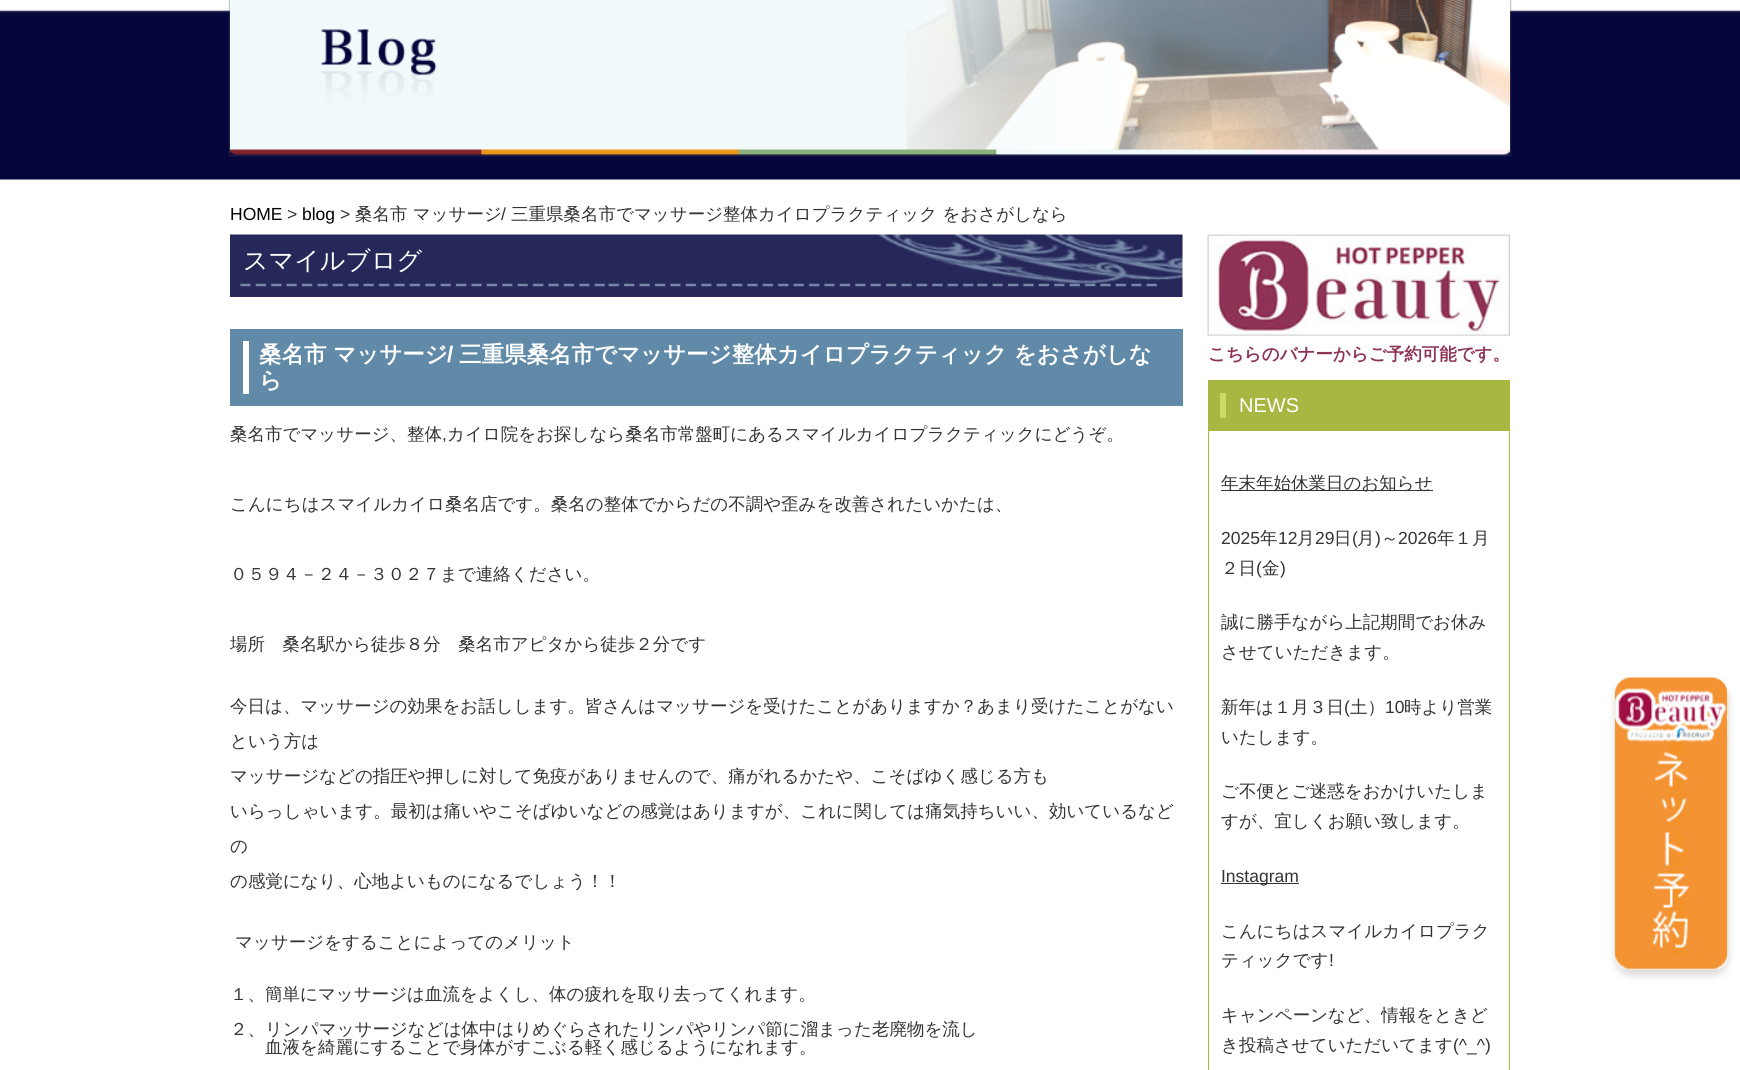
#include <cairo.h>
#include <math.h>
#include <stddef.h>


static void set_color(cairo_t *cr, unsigned color) {
    cairo_set_source_rgb(cr, (color >> 16) / 255.0, (color >> 8 & 255) / 255.0, (color & 255) / 255.0);
}

static void draw_text(cairo_t *cr, double x, double y, const char *s, const char *family, double size, int italic, int bold, unsigned color) {
    cairo_select_font_face(cr, family, italic ? CAIRO_FONT_SLANT_ITALIC : CAIRO_FONT_SLANT_NORMAL,
        bold ? CAIRO_FONT_WEIGHT_BOLD : CAIRO_FONT_WEIGHT_NORMAL);
    cairo_set_font_size(cr, size);
    set_color(cr, color);
    cairo_move_to(cr, x, y);
    cairo_show_text(cr, s);
}

static void fill_rect(cairo_t *cr, double x, double y, double w, double h, unsigned color) {
    set_color(cr, color);
    cairo_rectangle(cr, x, y, w, h);
    cairo_fill(cr);
}

static void rounded_rect(cairo_t *cr, double x, double y, double w, double h, double r) {
    cairo_new_sub_path(cr);
    cairo_arc(cr, x + w - r, y + h - r, r, 0, M_PI / 2);
    cairo_arc(cr, x + r, y + h - r, r, M_PI / 2, M_PI);
    cairo_arc(cr, x + r, y + r, r, M_PI, 1.5 * M_PI);
    cairo_arc(cr, x + w - r, y + r, r, 1.5 * M_PI, 2 * M_PI);
    cairo_close_path(cr);
}

static void draw_shadow(cairo_t *cr, double x, double y, double w, double h, double r, double blur, double alpha) {
    cairo_push_group_with_content(cr, CAIRO_CONTENT_ALPHA);
    cairo_set_operator(cr, CAIRO_OPERATOR_SOURCE);
    for (int i = 15; i >= -15 && fmin(w, h) + blur * i / 3 > 0; i -= 2) {
        double e = blur * i / 6;
        cairo_set_source_rgba(cr, 0, 0, 0, alpha * erfc((i - 1) / 8.5) / 2);
        rounded_rect(cr, x - e, y - e, w + 2 * e, h + 2 * e, fmax(0, fmin(r + e + blur * .6, fmin(w, h) / 2 + e)));
        cairo_fill(cr);
    }
    cairo_pattern_t *soft = cairo_pop_group(cr);
    cairo_mask(cr, soft);
    cairo_pattern_destroy(soft);
}

static void draw_image(cairo_t *cr, const char *path, double x, double y, double w, double h) {
    cairo_surface_t *image = cairo_image_surface_create_from_png(path);
    cairo_save(cr);
    cairo_set_source_surface(cr, image, x, y);
    cairo_rectangle(cr, x, y, w, h);
    cairo_fill(cr);
    cairo_restore(cr);
    cairo_surface_destroy(image);
}

int main(void) {
    cairo_surface_t *surface = cairo_image_surface_create(CAIRO_FORMAT_RGB24, 1740, 1070);
    cairo_t *cr = cairo_create(surface);
    cairo_font_options_t *options = cairo_font_options_create();
    cairo_font_options_set_hint_metrics(options, CAIRO_HINT_METRICS_OFF);
    cairo_font_options_set_hint_style(options, CAIRO_HINT_STYLE_NONE);
    cairo_set_font_options(cr, options);
    cairo_set_miter_limit(cr, 4);
    set_color(cr, 0xFFFFFF);
    cairo_paint(cr);
    draw_image(cr, "assets/img1.png", 0, 10, 1740, 170);
    cairo_save(cr);
    cairo_set_fill_rule(cr, CAIRO_FILL_RULE_EVEN_ODD);
    cairo_new_path(cr);
    cairo_move_to(cr, 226, 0);
    cairo_line_to(cr, 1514, 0);
    cairo_line_to(cr, 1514, 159);
    cairo_line_to(cr, 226, 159);
    cairo_close_path(cr);
    cairo_move_to(cr, 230, -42);
    cairo_line_to(cr, 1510, -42);
    cairo_line_to(cr, 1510, 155);
    cairo_line_to(cr, 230, 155);
    cairo_close_path(cr);
    cairo_clip(cr);
    set_color(cr, 0x555555);
    draw_shadow(cr, 230, -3, 1280, 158, 0, 1, 1);
    cairo_restore(cr);
    draw_image(cr, "assets/img2.png", 230, 0, 1280, 155);
    cairo_save(cr);
    cairo_set_fill_rule(cr, CAIRO_FILL_RULE_EVEN_ODD);
    cairo_new_path(cr);
    cairo_move_to(cr, 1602, 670);
    cairo_line_to(cr, 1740, 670);
    cairo_line_to(cr, 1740, 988);
    cairo_line_to(cr, 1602, 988);
    cairo_close_path(cr);
    cairo_move_to(cr, 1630, 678);
    cairo_line_to(cr, 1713, 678);
    cairo_curve_to(cr, 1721.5, 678, 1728, 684.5, 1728, 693);
    cairo_line_to(cr, 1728, 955);
    cairo_curve_to(cr, 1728, 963.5, 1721.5, 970, 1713, 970);
    cairo_line_to(cr, 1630, 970);
    cairo_curve_to(cr, 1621.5, 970, 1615, 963.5, 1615, 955);
    cairo_line_to(cr, 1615, 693);
    cairo_curve_to(cr, 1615, 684.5, 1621.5, 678, 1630, 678);
    cairo_close_path(cr);
    cairo_clip(cr);
    set_color(cr, 0x000000);
    draw_shadow(cr, 1615, 683, 113, 292, 15, 4, 0.15);
    cairo_restore(cr);
    draw_image(cr, "assets/img3.png", 1615, 677, 113, 293);
    draw_text(cr, 230, 220, "HOME", "Liberation Sans", 17.5, 0, 0, 0x000000);
    draw_text(cr, 287, 220, ">", "Liberation Sans", 17.5, 0, 0, 0x333333);
    draw_text(cr, 302, 220, "blog", "Liberation Sans", 17.5, 0, 0, 0x000000);
    draw_text(cr, 340, 220, ">", "Liberation Sans", 17.5, 0, 0, 0x333333);
    draw_text(cr, 355, 220, "桑名市 マッサージ", "WenQuanYi Zen Hei Medium", 17.5, 0, 0, 0x333333);
    draw_text(cr, 501, 220, "/", "Liberation Sans", 17.5, 0, 0, 0x333333);
    draw_text(cr, 511, 220, "三重県桑名市でマッサージ整体カイロプラクティック をおさがしなら", "WenQuanYi Zen Hei Medium", 17.5, 0, 0, 0x333333);
    draw_image(cr, "assets/img4.png", 230, 234, 953, 63);
    draw_text(cr, 243, 269, "スマイルブログ", "WenQuanYi Zen Hei Medium", 25, 0, 0, 0xFFFFFF);
    fill_rect(cr, 230, 329, 953, 77, 0x618AA8);
    fill_rect(cr, 243, 341, 6, 53, 0xFFFFFF);
    draw_text(cr, 259, 362, "桑名市 マッサージ", "WenQuanYi Zen Hei", 22.5, 0, 1, 0xFFFFFF);
    draw_text(cr, 447, 362, "/", "Liberation Sans", 22.5, 0, 1, 0xFFFFFF);
    draw_text(cr, 459, 362, "三重県桑名市でマッサージ整体カイロプラクティック をおさがしな", "WenQuanYi Zen Hei", 22.5, 0, 1, 0xFFFFFF);
    draw_text(cr, 259, 388, "ら", "WenQuanYi Zen Hei", 22.5, 0, 1, 0xFFFFFF);
    draw_text(cr, 230, 440, "桑名市でマッサージ、整体", "WenQuanYi Zen Hei Medium", 17.5, 0, 0, 0x333333);
    draw_text(cr, 442, 440, ",", "Liberation Sans", 17.5, 0, 0, 0x333333);
    draw_text(cr, 447, 440, "カイロ院をお探しなら桑名市常盤町にあるスマイルカイロプラクティックにどうぞ。", "WenQuanYi Zen Hei Medium", 17.5, 0, 0, 0x333333);
    draw_text(cr, 230, 510, "こんにちはスマイルカイロ桑名店です。桑名の整体でからだの不調や歪みを改善されたいかたは、", "WenQuanYi Zen Hei Medium", 17.5, 0, 0, 0x333333);
    draw_text(cr, 230, 580, "０５９４－２４－３０２７まで連絡ください。", "WenQuanYi Zen Hei Medium", 17.5, 0, 0, 0x333333);
    draw_text(cr, 230, 650, "場所　桑名駅から徒歩８分　桑名市アピタから徒歩２分です", "WenQuanYi Zen Hei Medium", 17.5, 0, 0, 0x333333);
    draw_text(cr, 230, 712, "今日は、マッサージの効果をお話しします。皆さんはマッサージを受けたことがありますか？あまり受けたことがない", "WenQuanYi Zen Hei Medium", 17.5, 0, 0, 0x333333);
    draw_text(cr, 230, 747, "という方は", "WenQuanYi Zen Hei Medium", 17.5, 0, 0, 0x333333);
    draw_text(cr, 230, 782, "マッサージなどの指圧や押しに対して免疫がありませんので、痛がれるかたや、こそばゆく感じる方も", "WenQuanYi Zen Hei Medium", 17.5, 0, 0, 0x333333);
    draw_text(cr, 230, 817, "いらっしゃいます。最初は痛いやこそばゆいなどの感覚はありますが、これに関しては痛気持ちいい、効いているなど", "WenQuanYi Zen Hei Medium", 17.5, 0, 0, 0x333333);
    draw_text(cr, 230, 852, "の", "WenQuanYi Zen Hei Medium", 17.5, 0, 0, 0x333333);
    draw_text(cr, 230, 887, "の感覚になり、心地よいものになるでしょう！！", "WenQuanYi Zen Hei Medium", 17.5, 0, 0, 0x333333);
    draw_text(cr, 235, 948, "マッサージをすることによってのメリット", "WenQuanYi Zen Hei Medium", 17.5, 0, 0, 0x333333);
    draw_text(cr, 230, 1000, "１、簡単にマッサージは血流をよくし、体の疲れを取り去ってくれます。", "WenQuanYi Zen Hei Medium", 17.5, 0, 0, 0x333333);
    draw_text(cr, 230, 1035, "２、リンパマッサージなどは体中はりめぐらされたリンパやリンパ節に溜まった老廃物を流し", "WenQuanYi Zen Hei Medium", 17.5, 0, 0, 0x333333);
    draw_text(cr, 265, 1053, "血液を綺麗にすることで身体がすこぶる軽く感じるようになれます。", "WenQuanYi Zen Hei Medium", 17.5, 0, 0, 0x333333);
    draw_image(cr, "assets/img5.png", 1207, 234, 303, 102);
    draw_text(cr, 1208, 360, "こちらのバナーからご予約可能です。", "WenQuanYi Zen Hei", 17.5, 0, 1, 0x8E3356);
    fill_rect(cr, 1208, 380, 302, 50, 0xA8B642);
    fill_rect(cr, 1220, 393, 6, 25, 0xCCDA61);
    draw_text(cr, 1239, 412, "NEWS", "Liberation Sans", 20, 0, 0, 0xFFFFFF);
    cairo_rectangle(cr, 1208.5, 430.5, 301, 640);
    set_color(cr, 0xA8B642);
    cairo_set_line_width(cr, 1);
    cairo_stroke(cr);
    fill_rect(cr, 1221, 490, 212, 1, 0x333333);
    draw_text(cr, 1221, 489, "年末年始休業日のお知らせ", "WenQuanYi Zen Hei Medium", 17.5, 0, 0, 0x333333);
    draw_text(cr, 1221, 544, "2025", "Liberation Sans", 17.5, 0, 0, 0x333333);
    draw_text(cr, 1260, 544, "年", "WenQuanYi Zen Hei Medium", 17.5, 0, 0, 0x333333);
    draw_text(cr, 1278, 544, "12", "Liberation Sans", 17.5, 0, 0, 0x333333);
    draw_text(cr, 1297, 544, "月", "WenQuanYi Zen Hei Medium", 17.5, 0, 0, 0x333333);
    draw_text(cr, 1315, 544, "29", "Liberation Sans", 17.5, 0, 0, 0x333333);
    draw_text(cr, 1334, 544, "日", "WenQuanYi Zen Hei Medium", 17.5, 0, 0, 0x333333);
    draw_text(cr, 1352, 544, "(", "Liberation Sans", 17.5, 0, 0, 0x333333);
    draw_text(cr, 1357, 544, "月", "WenQuanYi Zen Hei Medium", 17.5, 0, 0, 0x333333);
    draw_text(cr, 1375, 544, ")", "Liberation Sans", 17.5, 0, 0, 0x333333);
    draw_text(cr, 1381, 544, "～", "WenQuanYi Zen Hei Medium", 17.5, 0, 0, 0x333333);
    draw_text(cr, 1398, 544, "2026", "Liberation Sans", 17.5, 0, 0, 0x333333);
    draw_text(cr, 1437, 544, "年１月", "WenQuanYi Zen Hei Medium", 17.5, 0, 0, 0x333333);
    draw_text(cr, 1221, 574, "２日", "WenQuanYi Zen Hei Medium", 17.5, 0, 0, 0x333333);
    draw_text(cr, 1256, 574, "(", "Liberation Sans", 17.5, 0, 0, 0x333333);
    draw_text(cr, 1262, 574, "金", "WenQuanYi Zen Hei Medium", 17.5, 0, 0, 0x333333);
    draw_text(cr, 1280, 574, ")", "Liberation Sans", 17.5, 0, 0, 0x333333);
    draw_text(cr, 1221, 628, "誠に勝手ながら上記期間でお休み", "WenQuanYi Zen Hei Medium", 17.5, 0, 0, 0x333333);
    draw_text(cr, 1221, 658, "させていただきます。", "WenQuanYi Zen Hei Medium", 17.5, 0, 0, 0x333333);
    draw_text(cr, 1221, 713, "新年は１月３日", "WenQuanYi Zen Hei Medium", 17.5, 0, 0, 0x333333);
    draw_text(cr, 1344, 713, "(", "Liberation Sans", 17.5, 0, 0, 0x333333);
    draw_text(cr, 1350, 713, "土）", "WenQuanYi Zen Hei Medium", 17.5, 0, 0, 0x333333);
    draw_text(cr, 1385, 713, "10", "Liberation Sans", 17.5, 0, 0, 0x333333);
    draw_text(cr, 1404, 713, "時より営業", "WenQuanYi Zen Hei Medium", 17.5, 0, 0, 0x333333);
    draw_text(cr, 1221, 743, "いたします。", "WenQuanYi Zen Hei Medium", 17.5, 0, 0, 0x333333);
    draw_text(cr, 1221, 797, "ご不便とご迷惑をおかけいたしま", "WenQuanYi Zen Hei Medium", 17.5, 0, 0, 0x333333);
    draw_text(cr, 1221, 827, "すが、宜しくお願い致します。", "WenQuanYi Zen Hei Medium", 17.5, 0, 0, 0x333333);
    fill_rect(cr, 1221, 883, 78, 1, 0x333333);
    draw_text(cr, 1221, 882, "Instagram", "Liberation Sans", 17.5, 0, 0, 0x333333);
    draw_text(cr, 1221, 937, "こんにちはスマイルカイロプラク", "WenQuanYi Zen Hei Medium", 17.5, 0, 0, 0x333333);
    draw_text(cr, 1221, 966, "ティックです", "WenQuanYi Zen Hei Medium", 17.5, 0, 0, 0x333333);
    draw_text(cr, 1329, 966, "!", "Liberation Sans", 17.5, 0, 0, 0x333333);
    draw_text(cr, 1221, 1021, "キャンペーンなど、情報をときど", "WenQuanYi Zen Hei Medium", 17.5, 0, 0, 0x333333);
    draw_text(cr, 1221, 1051, "き投稿させていただいてます", "WenQuanYi Zen Hei Medium", 17.5, 0, 0, 0x333333);
    draw_text(cr, 1453, 1051, "(^_^)", "Liberation Sans", 17.5, 0, 0, 0x333333);
    cairo_surface_write_to_png(surface, "output.png");
    cairo_font_options_destroy(options);
    cairo_destroy(cr);
    cairo_surface_destroy(surface);
    return 0;
}
